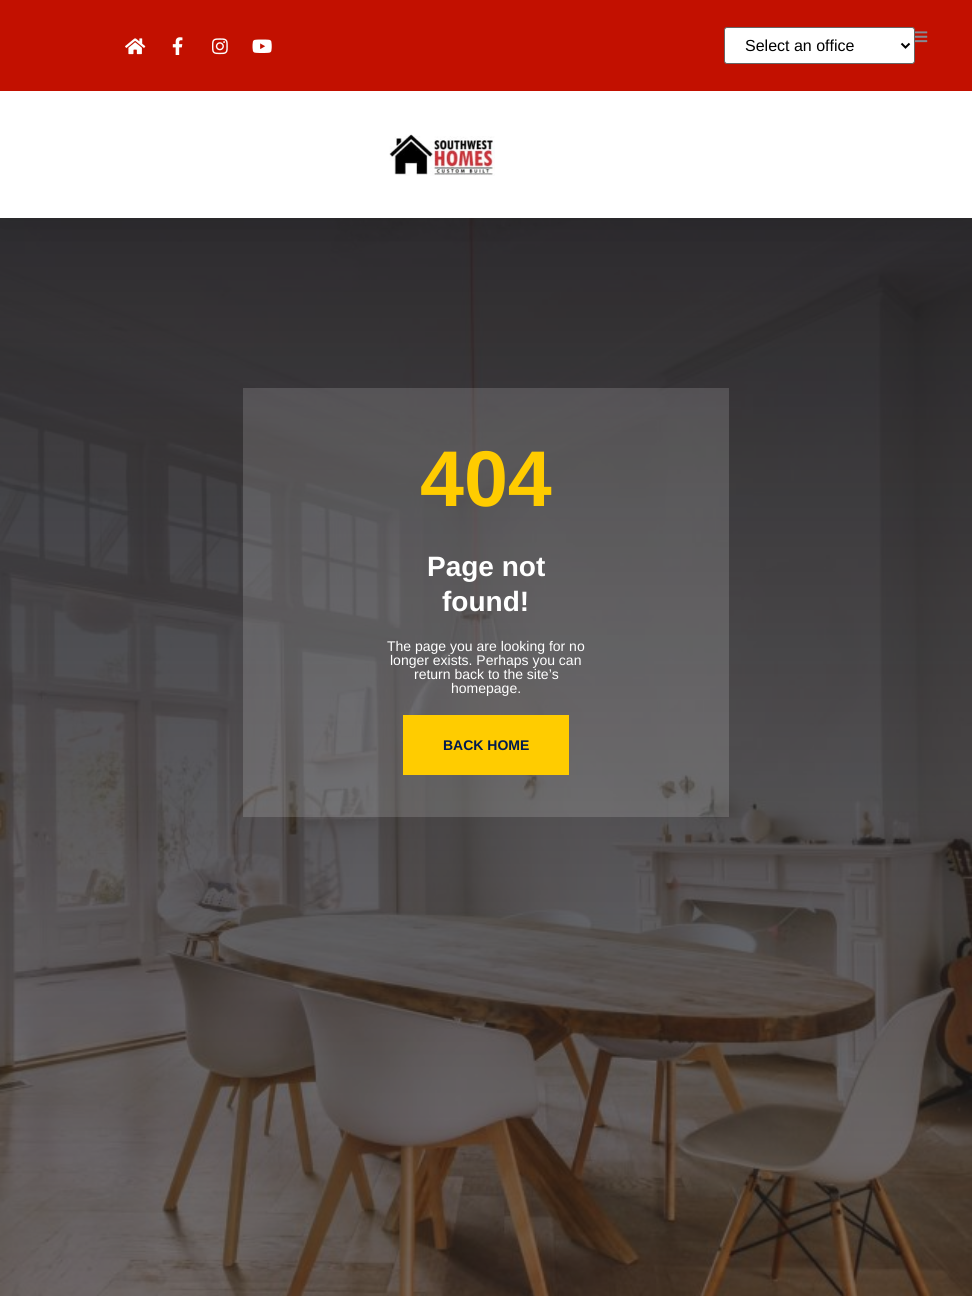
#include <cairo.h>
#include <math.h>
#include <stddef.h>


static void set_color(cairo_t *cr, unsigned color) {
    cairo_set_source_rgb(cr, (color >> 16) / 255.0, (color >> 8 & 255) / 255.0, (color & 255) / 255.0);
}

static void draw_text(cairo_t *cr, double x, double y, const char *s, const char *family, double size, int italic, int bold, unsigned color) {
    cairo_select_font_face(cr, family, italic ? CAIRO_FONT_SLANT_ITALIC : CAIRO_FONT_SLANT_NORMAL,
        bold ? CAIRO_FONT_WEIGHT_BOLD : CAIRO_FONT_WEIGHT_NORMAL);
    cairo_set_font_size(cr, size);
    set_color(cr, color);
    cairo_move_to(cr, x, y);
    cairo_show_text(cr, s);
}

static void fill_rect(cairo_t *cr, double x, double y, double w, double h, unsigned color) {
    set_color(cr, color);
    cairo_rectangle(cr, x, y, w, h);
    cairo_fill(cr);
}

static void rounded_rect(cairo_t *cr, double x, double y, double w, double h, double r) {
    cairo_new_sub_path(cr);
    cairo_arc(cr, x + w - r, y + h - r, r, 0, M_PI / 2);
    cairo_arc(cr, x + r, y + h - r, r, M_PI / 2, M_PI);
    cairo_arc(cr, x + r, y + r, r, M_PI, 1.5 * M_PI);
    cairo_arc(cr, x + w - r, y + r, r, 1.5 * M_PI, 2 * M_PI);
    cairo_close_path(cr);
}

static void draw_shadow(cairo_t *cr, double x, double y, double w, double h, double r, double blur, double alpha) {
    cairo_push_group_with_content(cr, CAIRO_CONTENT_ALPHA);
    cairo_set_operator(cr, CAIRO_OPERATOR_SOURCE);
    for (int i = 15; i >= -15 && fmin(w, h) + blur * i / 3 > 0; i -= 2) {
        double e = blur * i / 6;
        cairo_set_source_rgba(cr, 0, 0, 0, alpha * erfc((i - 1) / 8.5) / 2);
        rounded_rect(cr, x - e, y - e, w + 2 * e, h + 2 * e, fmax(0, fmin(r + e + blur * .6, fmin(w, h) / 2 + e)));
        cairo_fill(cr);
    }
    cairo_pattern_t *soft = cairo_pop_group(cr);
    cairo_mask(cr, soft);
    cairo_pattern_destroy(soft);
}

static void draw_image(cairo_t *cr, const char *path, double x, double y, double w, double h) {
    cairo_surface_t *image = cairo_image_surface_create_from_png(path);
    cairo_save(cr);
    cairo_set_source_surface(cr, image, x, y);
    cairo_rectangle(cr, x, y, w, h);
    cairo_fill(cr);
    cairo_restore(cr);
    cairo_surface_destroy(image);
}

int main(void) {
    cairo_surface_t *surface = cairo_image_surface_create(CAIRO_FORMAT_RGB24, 972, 1296);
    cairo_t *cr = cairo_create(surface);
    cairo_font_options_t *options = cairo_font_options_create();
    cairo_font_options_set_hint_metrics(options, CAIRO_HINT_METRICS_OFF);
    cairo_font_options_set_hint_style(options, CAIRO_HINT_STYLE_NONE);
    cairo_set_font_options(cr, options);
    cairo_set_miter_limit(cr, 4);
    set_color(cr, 0xFFFFFF);
    cairo_paint(cr);
    draw_image(cr, "assets/img7.png", 0, 218, 972, 1078);
    set_color(cr, 0x000000);
    draw_shadow(cr, 0, 5, 972, 218, 0, 15, 0.1);
    fill_rect(cr, 0, 0, 972, 91, 0xC21000);
    draw_image(cr, "assets/img1.png", 125, 38, 21, 17);
    draw_image(cr, "assets/img2.png", 172, 37, 11, 18);
    draw_image(cr, "assets/img3.png", 212, 38, 16, 17);
    draw_image(cr, "assets/img4.png", 252, 39, 20, 14);
    draw_image(cr, "assets/img5.png", 915, 31, 13, 12);
    set_color(cr, 0xFFFFFF);
    rounded_rect(cr, 724.5, 27.5, 190, 36, 2.5);
    cairo_fill_preserve(cr);
    set_color(cr, 0x666666);
    cairo_set_line_width(cr, 1);
    cairo_stroke(cr);
    cairo_new_path(cr);
    cairo_move_to(cr, 901.5, 43.5);
    cairo_line_to(cr, 905.5, 47.5);
    cairo_line_to(cr, 909.5, 43.5);
    set_color(cr, 0x000000);
    cairo_set_line_width(cr, 2);
    cairo_stroke(cr);
    draw_text(cr, 745, 51, "Select an office", "Liberation Sans", 16, 0, 0, 0x000000);
    fill_rect(cr, 0, 91, 972, 127, 0xFFFFFF);
    draw_image(cr, "assets/img6.png", 389, 134, 106, 42);
    cairo_set_source_rgba(cr, 1, 1, 1, 0.15);
    cairo_rectangle(cr, 243, 388, 486, 429);
    cairo_fill(cr);
    draw_text(cr, 420, 506, "404", "Liberation Sans", 79, 0, 1, 0xFFCC00);
    draw_text(cr, 427, 576, "Page not", "Liberation Sans", 28, 0, 1, 0xFFFFFF);
    draw_text(cr, 442, 611, "found!", "Liberation Sans", 28, 0, 1, 0xFFFFFF);
    draw_text(cr, 387, 651, "The page you are looking for no", "Liberation Sans", 14, 0, 0, 0xFFFFFF);
    draw_text(cr, 390, 665, "longer exists. Perhaps you can", "Liberation Sans", 14, 0, 0, 0xFFFFFF);
    draw_text(cr, 414, 679, "return back to the site’s", "Liberation Sans", 14, 0, 0, 0xFFFFFF);
    draw_text(cr, 451, 693, "homepage.", "Liberation Sans", 14, 0, 0, 0xFFFFFF);
    fill_rect(cr, 403, 715, 166, 60, 0xFFCC00);
    draw_text(cr, 443, 750, "BACK HOME", "Liberation Sans", 14, 0, 1, 0x011B4E);
    cairo_surface_write_to_png(surface, "output.png");
    cairo_font_options_destroy(options);
    cairo_destroy(cr);
    cairo_surface_destroy(surface);
    return 0;
}
